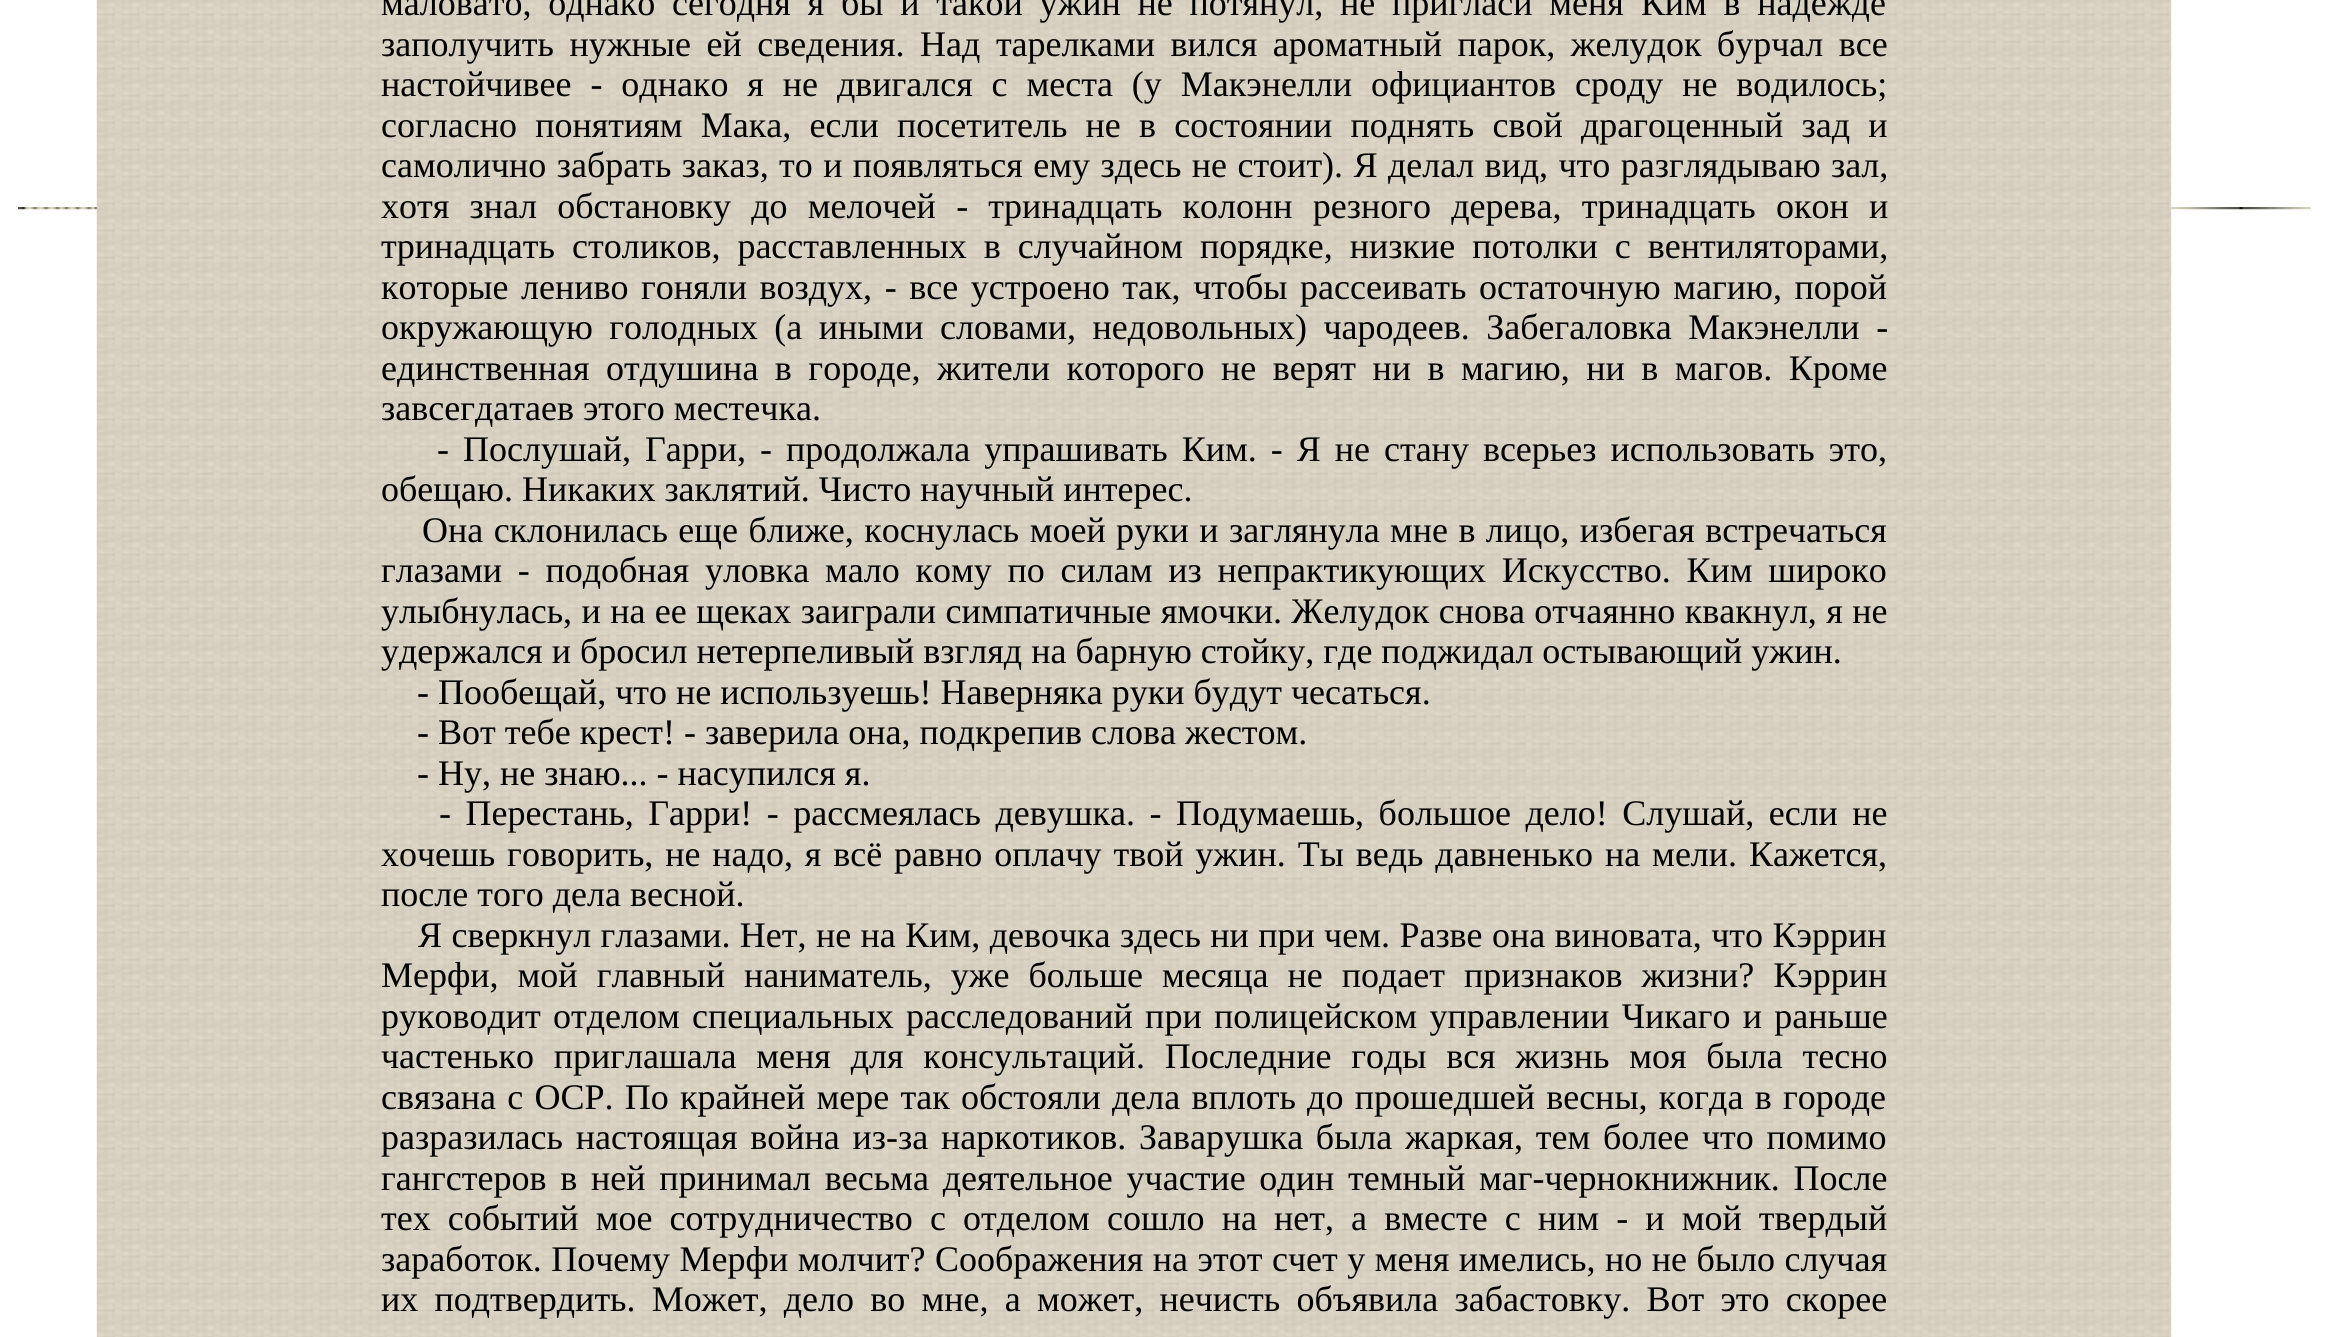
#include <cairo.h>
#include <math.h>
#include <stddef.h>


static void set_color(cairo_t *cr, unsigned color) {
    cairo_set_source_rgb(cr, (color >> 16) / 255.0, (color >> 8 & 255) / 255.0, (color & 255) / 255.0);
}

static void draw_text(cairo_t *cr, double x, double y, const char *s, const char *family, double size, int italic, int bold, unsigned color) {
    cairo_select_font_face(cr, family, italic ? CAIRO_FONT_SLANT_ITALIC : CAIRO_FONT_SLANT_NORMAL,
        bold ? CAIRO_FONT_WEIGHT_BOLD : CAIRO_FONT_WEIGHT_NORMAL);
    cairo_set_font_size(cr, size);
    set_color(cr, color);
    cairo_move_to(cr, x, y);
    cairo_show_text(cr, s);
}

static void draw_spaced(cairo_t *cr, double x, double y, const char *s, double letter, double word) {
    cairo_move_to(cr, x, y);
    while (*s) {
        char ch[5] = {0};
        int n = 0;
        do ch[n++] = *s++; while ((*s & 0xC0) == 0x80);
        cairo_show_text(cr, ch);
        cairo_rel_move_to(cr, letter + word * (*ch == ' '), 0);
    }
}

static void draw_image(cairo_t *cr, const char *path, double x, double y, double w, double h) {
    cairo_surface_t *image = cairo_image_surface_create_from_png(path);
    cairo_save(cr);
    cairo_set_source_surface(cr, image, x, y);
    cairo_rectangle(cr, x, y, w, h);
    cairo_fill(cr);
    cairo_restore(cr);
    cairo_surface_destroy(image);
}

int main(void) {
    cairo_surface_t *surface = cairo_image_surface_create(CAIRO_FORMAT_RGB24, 2330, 1337);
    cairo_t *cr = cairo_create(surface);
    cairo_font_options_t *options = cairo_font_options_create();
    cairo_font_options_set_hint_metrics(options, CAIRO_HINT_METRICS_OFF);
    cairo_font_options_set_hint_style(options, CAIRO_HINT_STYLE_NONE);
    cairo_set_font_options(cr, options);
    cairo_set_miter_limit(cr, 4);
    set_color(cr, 0xFFFFFF);
    cairo_paint(cr);
    draw_image(cr, "assets/img2.png", 96, 0, 2076, 1337);
    draw_image(cr, "assets/img1.png", 18, 207, 79, 3);
    cairo_select_font_face(cr, "Liberation Serif", CAIRO_FONT_SLANT_NORMAL, CAIRO_FONT_WEIGHT_NORMAL);
    cairo_set_font_size(cr, 36);
    set_color(cr, 0x000000);
    draw_spaced(cr, 381, 15, "маловато, однако сегодня я бы и такой ужин не потянул, не пригласи меня Ким в надежде", 0, 7.75);
    draw_spaced(cr, 381, 56, "заполучить нужные ей сведения. Над тарелками вился ароматный парок, желудок бурчал все", 0, 6.5);
    draw_spaced(cr, 381, 96, "настойчивее - однако я не двигался с места (у Макэнелли официантов сроду не водилось;", 0, 9.9);
    draw_spaced(cr, 381, 137, "согласно понятиям Мака, если посетитель не в состоянии поднять свой драгоценный зад и", 0, 9.25);
    draw_spaced(cr, 381, 177, "самолично забрать заказ, то и появляться ему здесь не стоит). Я делал вид, что разглядываю зал,", 0, 1.4);
    draw_spaced(cr, 381, 218, "хотя знал обстановку до мелочей - тринадцать колонн резного дерева, тринадцать окон и", 0, 11.25);
    draw_spaced(cr, 381, 258, "тринадцать столиков, расставленных в случайном порядке, низкие потолки с вентиляторами,", 0, 8);
    draw_spaced(cr, 381, 299, "которые лениво гоняли воздух, - все устроено так, чтобы рассеивать остаточную магию, порой", 0, 3.6);
    draw_spaced(cr, 381, 339, "окружающую голодных (а иными словами, недовольных) чародеев. Забегаловка Макэнелли -", 0, 7.5);
    draw_spaced(cr, 381, 380, "единственная отдушина в городе, жители которого не верят ни в магию, ни в магов. Кроме", 0, 7.5);
    draw_text(cr, 381, 420, "завсегдатаев этого местечка.", "Liberation Serif", 36, 0, 0, 0x000000);
    draw_spaced(cr, 437, 461, "- Послушай, Гарри, - продолжала упрашивать Ким. - Я не стану всерьез использовать это,", 0, 5);
    draw_text(cr, 381, 501, "обещаю. Никаких заклятий. Чисто научный интерес.", "Liberation Serif", 36, 0, 0, 0x000000);
    draw_spaced(cr, 422, 542, "Она склонилась еще ближе, коснулась моей руки и заглянула мне в лицо, избегая встречаться", 0, 1.4);
    draw_spaced(cr, 381, 582, "глазами - подобная уловка мало кому по силам из непрактикующих Искусство. Ким широко", 0, 6.75);
    draw_spaced(cr, 381, 623, "улыбнулась, и на ее щеках заиграли симпатичные ямочки. Желудок снова отчаянно квакнул, я не", 0, 0.4);
    draw_text(cr, 381, 663, "удержался и бросил нетерпеливый взгляд на барную стойку, где поджидал остывающий ужин.", "Liberation Serif", 36, 0, 0, 0x000000);
    draw_text(cr, 417, 704, "- Пообещай, что не используешь! Наверняка руки будут чесаться.", "Liberation Serif", 36, 0, 0, 0x000000);
    draw_text(cr, 417, 744, "- Вот тебе крест! - заверила она, подкрепив слова жестом.", "Liberation Serif", 36, 0, 0, 0x000000);
    draw_text(cr, 417, 785, "- Ну, не знаю... - насупился я.", "Liberation Serif", 36, 0, 0, 0x000000);
    draw_spaced(cr, 439, 825, "- Перестань, Гарри! - рассмеялась девушка. - Подумаешь, большое дело! Слушай, если не", 0, 5.5);
    draw_spaced(cr, 381, 866, "хочешь говорить, не надо, я всё равно оплачу твой ужин. Ты ведь давненько на мели. Кажется,", 0, 2.9);
    draw_text(cr, 381, 906, "после того дела весной.", "Liberation Serif", 36, 0, 0, 0x000000);
    draw_spaced(cr, 418, 947, "Я сверкнул глазами. Нет, не на Ким, девочка здесь ни при чем. Разве она виновата, что Кэррин", 0, 0.4);
    draw_spaced(cr, 381, 987, "Мерфи, мой главный наниматель, уже больше месяца не подает признаков жизни? Кэррин", 0, 10);
    draw_spaced(cr, 381, 1028, "руководит отделом специальных расследований при полицейском управлении Чикаго и раньше", 0, 3.25);
    draw_spaced(cr, 381, 1068, "частенько приглашала меня для консультаций. Последние годы вся жизнь моя была тесно", 0, 10.75);
    draw_spaced(cr, 381, 1109, "связана с ОСР. По крайней мере так обстояли дела вплоть до прошедшей весны, когда в городе", 0, 2.25);
    draw_spaced(cr, 381, 1149, "разразилась настоящая война из-за наркотиков. Заварушка была жаркая, тем более что помимо", 0, 3.75);
    draw_spaced(cr, 381, 1190, "гангстеров в ней принимал весьма деятельное участие один темный маг-чернокнижник. После", 0, 4.75);
    draw_spaced(cr, 381, 1230, "тех событий мое сотрудничество с отделом сошло на нет, а вместе с ним - и мой твердый", 0, 8.1);
    draw_spaced(cr, 381, 1271, "заработок. Почему Мерфи молчит? Соображения на этот счет у меня имелись, но не было случая", 0, 0.5);
    draw_spaced(cr, 381, 1311, "их подтвердить. Может, дело во мне, а может, нечисть объявила забастовку. Вот это скорее", 0, 7.25);
    draw_image(cr, "assets/img3.png", 2171, 207, 140, 3);
    cairo_surface_write_to_png(surface, "output.png");
    cairo_font_options_destroy(options);
    cairo_destroy(cr);
    cairo_surface_destroy(surface);
    return 0;
}
